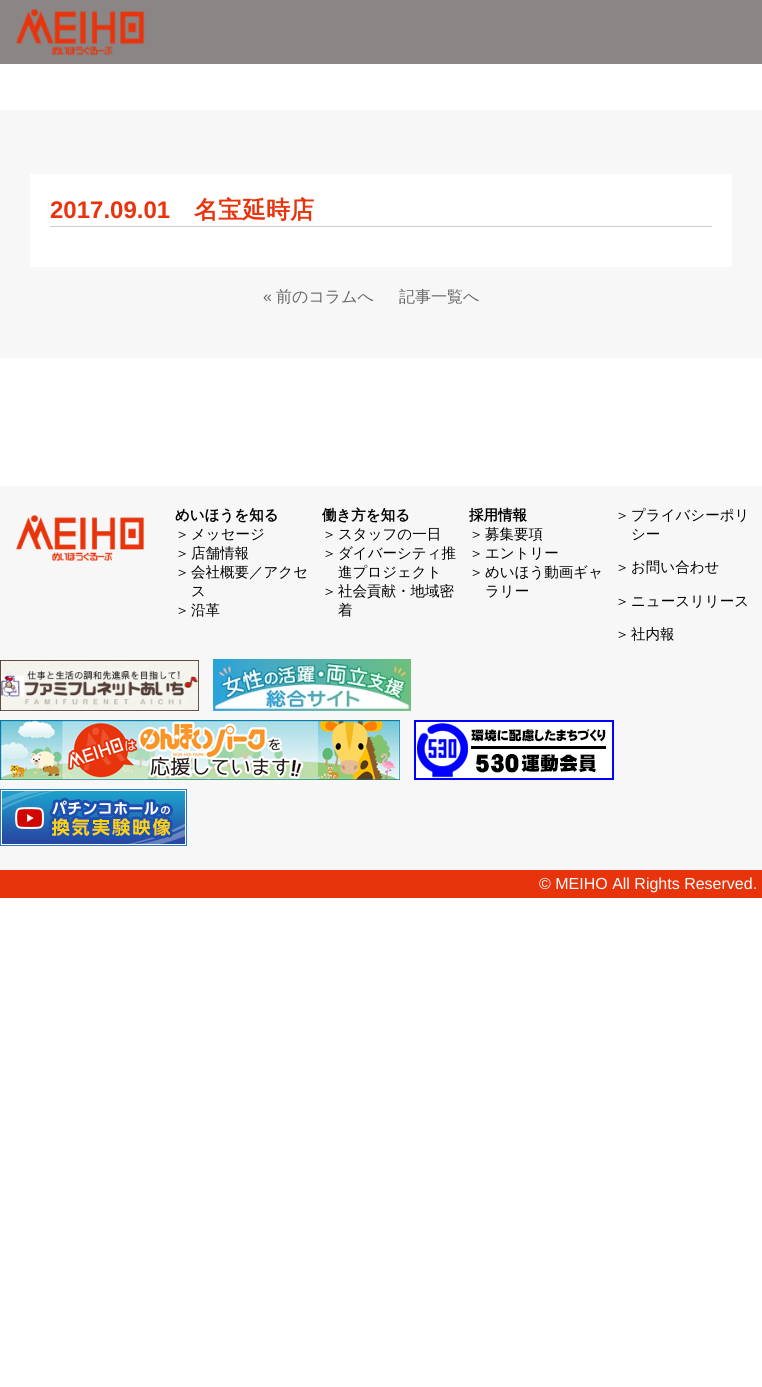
#include <cairo.h>
#include <math.h>
#include <stddef.h>


static void set_color(cairo_t *cr, unsigned color) {
    cairo_set_source_rgb(cr, (color >> 16) / 255.0, (color >> 8 & 255) / 255.0, (color & 255) / 255.0);
}

static void draw_text(cairo_t *cr, double x, double y, const char *s, const char *family, double size, int italic, int bold, unsigned color) {
    cairo_select_font_face(cr, family, italic ? CAIRO_FONT_SLANT_ITALIC : CAIRO_FONT_SLANT_NORMAL,
        bold ? CAIRO_FONT_WEIGHT_BOLD : CAIRO_FONT_WEIGHT_NORMAL);
    cairo_set_font_size(cr, size);
    set_color(cr, color);
    cairo_move_to(cr, x, y);
    cairo_show_text(cr, s);
}

static void fill_rect(cairo_t *cr, double x, double y, double w, double h, unsigned color) {
    set_color(cr, color);
    cairo_rectangle(cr, x, y, w, h);
    cairo_fill(cr);
}

static void draw_image(cairo_t *cr, const char *path, double x, double y, double w, double h) {
    cairo_surface_t *image = cairo_image_surface_create_from_png(path);
    cairo_save(cr);
    cairo_set_source_surface(cr, image, x, y);
    cairo_rectangle(cr, x, y, w, h);
    cairo_fill(cr);
    cairo_restore(cr);
    cairo_surface_destroy(image);
}

int main(void) {
    cairo_surface_t *surface = cairo_image_surface_create(CAIRO_FORMAT_RGB24, 762, 1387);
    cairo_t *cr = cairo_create(surface);
    cairo_font_options_t *options = cairo_font_options_create();
    cairo_font_options_set_hint_metrics(options, CAIRO_HINT_METRICS_OFF);
    cairo_font_options_set_hint_style(options, CAIRO_HINT_STYLE_NONE);
    cairo_set_font_options(cr, options);
    cairo_set_miter_limit(cr, 4);
    set_color(cr, 0xFFFFFF);
    cairo_paint(cr);
    fill_rect(cr, 0, 0, 762, 64, 0x898685);
    draw_image(cr, "assets/img1.png", 16, 8, 129, 48);
    fill_rect(cr, 0, 110, 762, 248, 0xF7F7F7);
    fill_rect(cr, 30, 174, 702, 93, 0xFFFFFF);
    fill_rect(cr, 50, 226, 662, 1, 0xCCCCCC);
    draw_text(cr, 50, 218, "2017.09.01", "Liberation Sans", 24, 0, 1, 0xE8340C);
    draw_text(cr, 194, 218, "名宝延時店", "WenQuanYi Zen Hei", 24, 0, 1, 0xE8340C);
    draw_text(cr, 263, 302, "«", "Liberation Sans", 16, 0, 0, 0x666666);
    draw_text(cr, 276, 302, "前のコラムへ", "WenQuanYi Zen Hei Medium", 16, 0, 0, 0x666666);
    draw_text(cr, 399, 302, "記事一覧へ", "WenQuanYi Zen Hei Medium", 16, 0, 0, 0x666666);
    fill_rect(cr, 0, 486, 762, 384, 0xF7F7F7);
    draw_image(cr, "assets/img2.png", 16, 515, 128, 46);
    draw_text(cr, 175, 520, "めいほうを知る", "WenQuanYi Zen Hei", 14.5, 0, 1, 0x000000);
    draw_text(cr, 175, 539, "＞", "WenQuanYi Zen Hei Medium", 14.5, 0, 0, 0x000000);
    draw_text(cr, 191, 539, "メッセージ", "WenQuanYi Zen Hei Medium", 14.5, 0, 0, 0x000000);
    draw_text(cr, 175, 558, "＞", "WenQuanYi Zen Hei Medium", 14.5, 0, 0, 0x000000);
    draw_text(cr, 191, 558, "店舗情報", "WenQuanYi Zen Hei Medium", 14.5, 0, 0, 0x000000);
    draw_text(cr, 175, 577, "＞", "WenQuanYi Zen Hei Medium", 14.5, 0, 0, 0x000000);
    draw_text(cr, 191, 577, "会社概要／アクセ", "WenQuanYi Zen Hei Medium", 14.5, 0, 0, 0x000000);
    draw_text(cr, 191, 596, "ス", "WenQuanYi Zen Hei Medium", 14.5, 0, 0, 0x000000);
    draw_text(cr, 175, 615, "＞", "WenQuanYi Zen Hei Medium", 14.5, 0, 0, 0x000000);
    draw_text(cr, 191, 615, "沿革", "WenQuanYi Zen Hei Medium", 14.5, 0, 0, 0x000000);
    draw_text(cr, 322, 520, "働き方を知る", "WenQuanYi Zen Hei", 14.5, 0, 1, 0x000000);
    draw_text(cr, 322, 539, "＞", "WenQuanYi Zen Hei Medium", 14.5, 0, 0, 0x000000);
    draw_text(cr, 338, 539, "スタッフの一日", "WenQuanYi Zen Hei Medium", 14.5, 0, 0, 0x000000);
    draw_text(cr, 322, 558, "＞", "WenQuanYi Zen Hei Medium", 14.5, 0, 0, 0x000000);
    draw_text(cr, 338, 558, "ダイバーシティ推", "WenQuanYi Zen Hei Medium", 14.5, 0, 0, 0x000000);
    draw_text(cr, 338, 577, "進プロジェクト", "WenQuanYi Zen Hei Medium", 14.5, 0, 0, 0x000000);
    draw_text(cr, 322, 596, "＞", "WenQuanYi Zen Hei Medium", 14.5, 0, 0, 0x000000);
    draw_text(cr, 338, 596, "社会貢献・地域密", "WenQuanYi Zen Hei Medium", 14.5, 0, 0, 0x000000);
    draw_text(cr, 338, 615, "着", "WenQuanYi Zen Hei Medium", 14.5, 0, 0, 0x000000);
    draw_text(cr, 469, 520, "採用情報", "WenQuanYi Zen Hei", 14.5, 0, 1, 0x000000);
    draw_text(cr, 469, 539, "＞", "WenQuanYi Zen Hei Medium", 14.5, 0, 0, 0x000000);
    draw_text(cr, 485, 539, "募集要項", "WenQuanYi Zen Hei Medium", 14.5, 0, 0, 0x000000);
    draw_text(cr, 469, 558, "＞", "WenQuanYi Zen Hei Medium", 14.5, 0, 0, 0x000000);
    draw_text(cr, 485, 558, "エントリー", "WenQuanYi Zen Hei Medium", 14.5, 0, 0, 0x000000);
    draw_text(cr, 469, 577, "＞", "WenQuanYi Zen Hei Medium", 14.5, 0, 0, 0x000000);
    draw_text(cr, 485, 577, "めいほう動画ギャ", "WenQuanYi Zen Hei Medium", 14.5, 0, 0, 0x000000);
    draw_text(cr, 485, 596, "ラリー", "WenQuanYi Zen Hei Medium", 14.5, 0, 0, 0x000000);
    draw_text(cr, 615, 520, "＞", "WenQuanYi Zen Hei Medium", 14.5, 0, 0, 0x000000);
    draw_text(cr, 631, 520, "プライバシーポリ", "WenQuanYi Zen Hei Medium", 14.5, 0, 0, 0x000000);
    draw_text(cr, 631, 539, "シー", "WenQuanYi Zen Hei Medium", 14.5, 0, 0, 0x000000);
    draw_text(cr, 615, 572, "＞", "WenQuanYi Zen Hei Medium", 14.5, 0, 0, 0x000000);
    draw_text(cr, 631, 572, "お問い合わせ", "WenQuanYi Zen Hei Medium", 14.5, 0, 0, 0x000000);
    draw_text(cr, 615, 606, "＞", "WenQuanYi Zen Hei Medium", 14.5, 0, 0, 0x000000);
    draw_text(cr, 631, 606, "ニュースリリース", "WenQuanYi Zen Hei Medium", 14.5, 0, 0, 0x000000);
    draw_text(cr, 615, 639, "＞", "WenQuanYi Zen Hei Medium", 14.5, 0, 0, 0x000000);
    draw_text(cr, 631, 639, "社内報", "WenQuanYi Zen Hei Medium", 14.5, 0, 0, 0x000000);
    draw_image(cr, "assets/img3.png", 0, 660, 199, 51);
    draw_image(cr, "assets/img4.png", 213, 659, 198, 52);
    draw_image(cr, "assets/img5.png", 0, 720, 400, 60);
    draw_image(cr, "assets/img6.png", 414, 720, 200, 60);
    draw_image(cr, "assets/img7.png", 0, 789, 187, 57);
    fill_rect(cr, 0, 870, 762, 28, 0xE8340C);
    draw_text(cr, 539, 889, "© MEIHO All Rights Reserved.", "Liberation Sans", 16, 0, 0, 0xFFFFFF);
    cairo_surface_write_to_png(surface, "output.png");
    cairo_font_options_destroy(options);
    cairo_destroy(cr);
    cairo_surface_destroy(surface);
    return 0;
}
